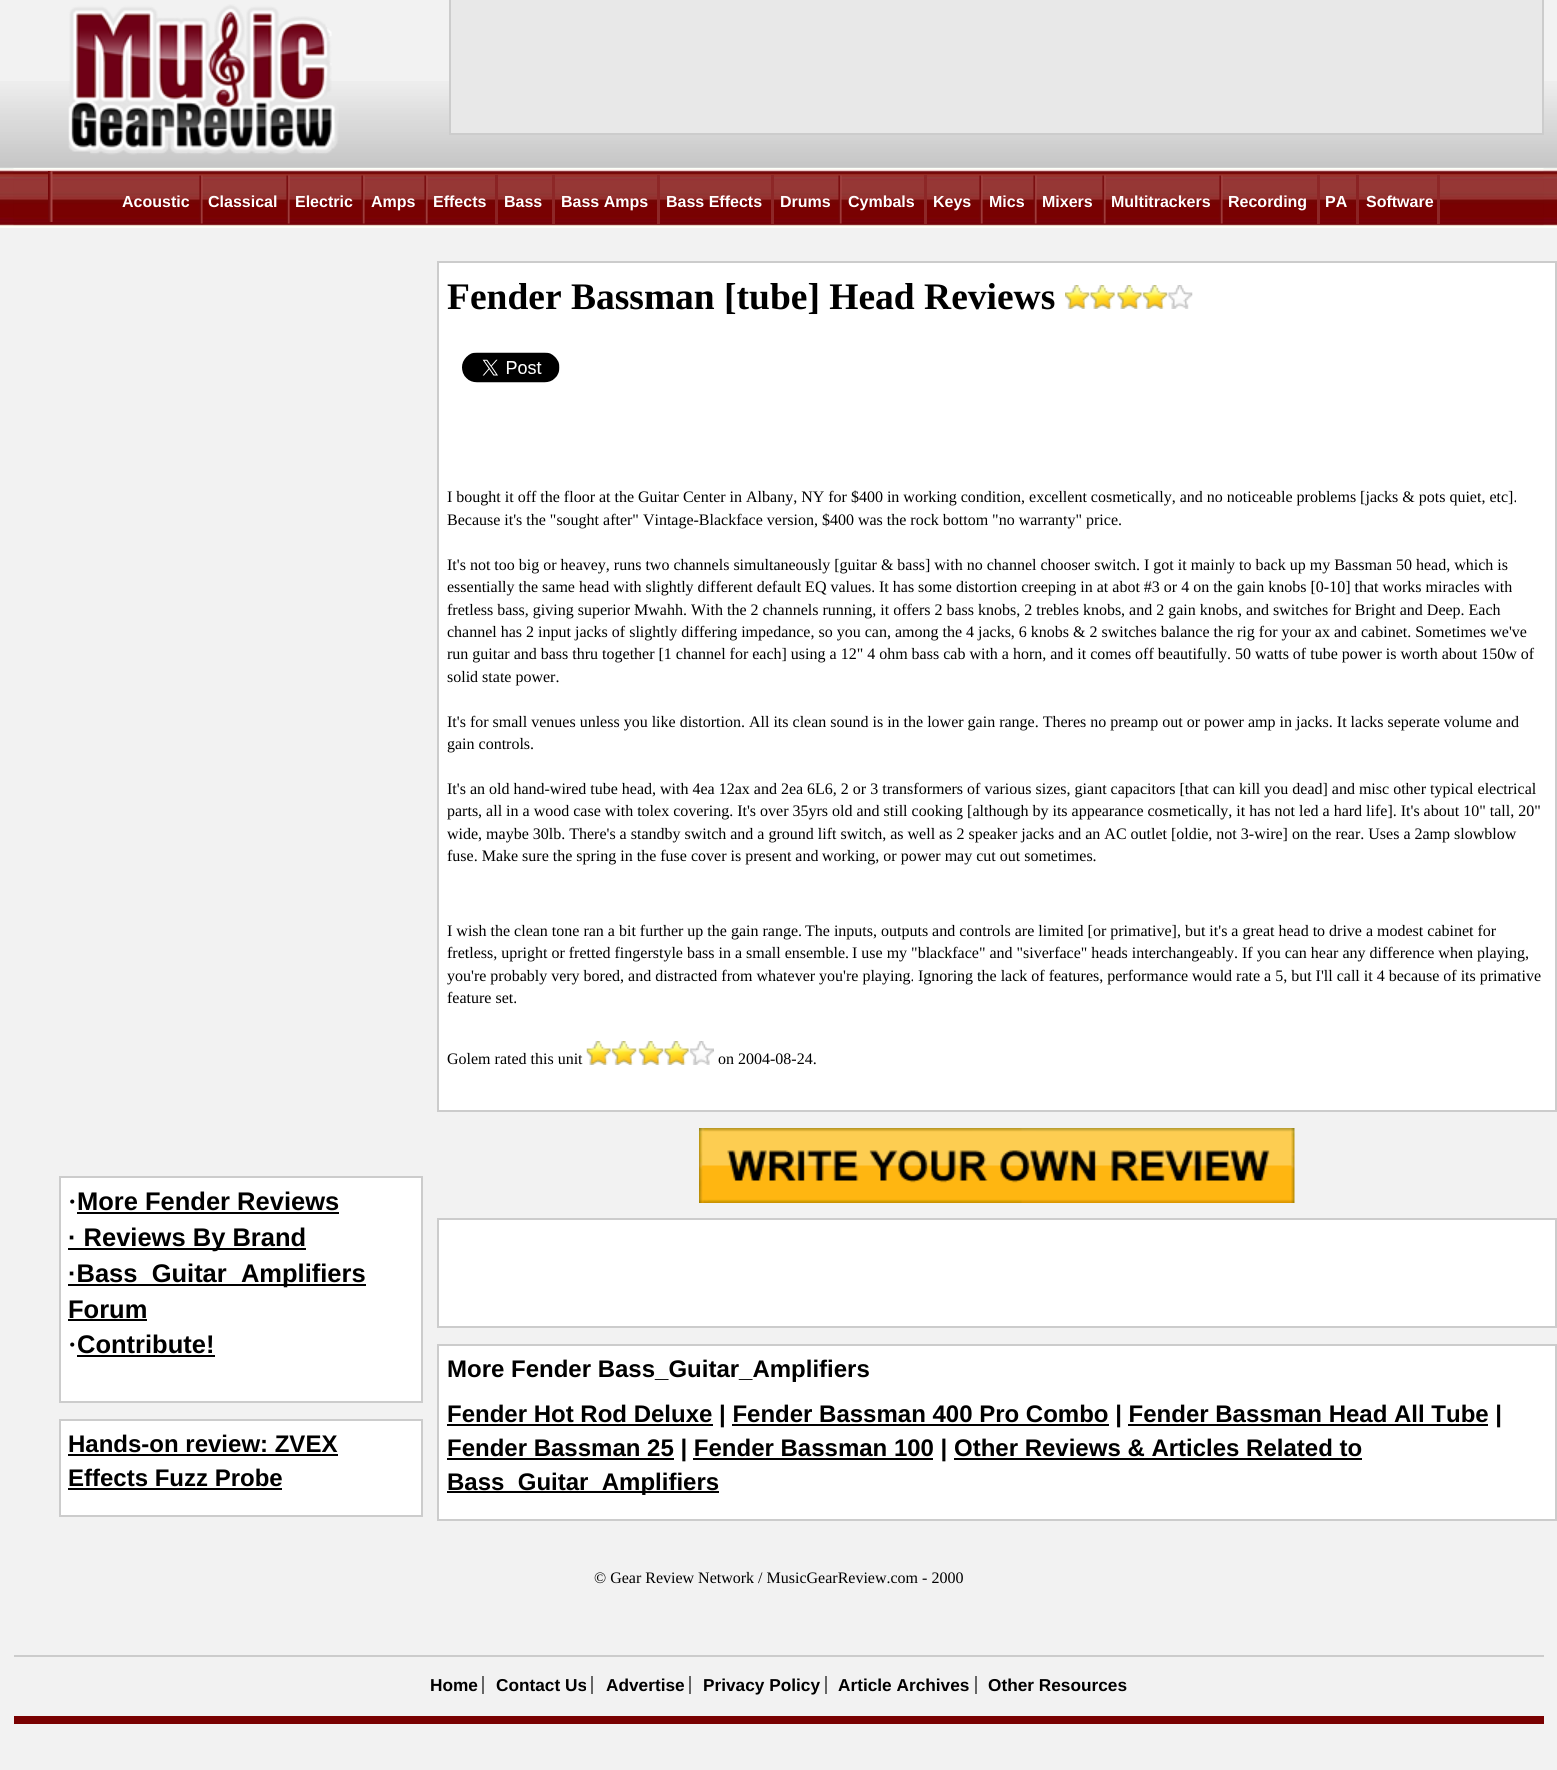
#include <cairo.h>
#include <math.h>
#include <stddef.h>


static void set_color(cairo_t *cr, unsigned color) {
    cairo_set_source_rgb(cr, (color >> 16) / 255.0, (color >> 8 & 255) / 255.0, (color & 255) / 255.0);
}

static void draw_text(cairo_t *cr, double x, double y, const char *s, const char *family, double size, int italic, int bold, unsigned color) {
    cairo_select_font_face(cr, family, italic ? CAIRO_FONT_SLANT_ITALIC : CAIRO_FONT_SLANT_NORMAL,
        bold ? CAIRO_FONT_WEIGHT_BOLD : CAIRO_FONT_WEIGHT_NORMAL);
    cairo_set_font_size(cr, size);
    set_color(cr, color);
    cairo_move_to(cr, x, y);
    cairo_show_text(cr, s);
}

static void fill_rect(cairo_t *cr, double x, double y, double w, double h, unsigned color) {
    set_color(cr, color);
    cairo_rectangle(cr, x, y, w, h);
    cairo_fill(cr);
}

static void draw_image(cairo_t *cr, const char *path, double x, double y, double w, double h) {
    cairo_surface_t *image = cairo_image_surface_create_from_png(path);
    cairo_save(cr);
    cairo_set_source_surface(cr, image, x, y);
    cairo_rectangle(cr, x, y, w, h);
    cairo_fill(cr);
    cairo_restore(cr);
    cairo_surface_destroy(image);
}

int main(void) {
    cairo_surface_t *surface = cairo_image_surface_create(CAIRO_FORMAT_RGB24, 1557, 1770);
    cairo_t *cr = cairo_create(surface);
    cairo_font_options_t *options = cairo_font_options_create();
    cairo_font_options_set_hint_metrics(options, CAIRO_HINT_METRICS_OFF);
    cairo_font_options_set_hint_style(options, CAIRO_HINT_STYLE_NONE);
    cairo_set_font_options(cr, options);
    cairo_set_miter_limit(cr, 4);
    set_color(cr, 0xF2F2F2);
    cairo_paint(cr);
    draw_image(cr, "assets/img1.png", 0, 81, 1557, 147);
    draw_image(cr, "assets/img2.png", 68, 4, 271, 151);
    set_color(cr, 0xE8E8E8);
    cairo_rectangle(cr, 450, -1, 1093, 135);
    cairo_fill_preserve(cr);
    set_color(cr, 0xCCCCCC);
    cairo_stroke(cr);
    draw_image(cr, "assets/img3.png", 13, 168, 1531, 58);
    draw_image(cr, "assets/img4.png", 48, 171, 5, 51);
    draw_text(cr, 122, 207, "Acoustic", "Liberation Sans", 16, 0, 1, 0xFFFFFF);
    draw_image(cr, "assets/img5.png", 199, 175, 4, 49);
    draw_text(cr, 208, 207, "Classical", "Liberation Sans", 16, 0, 1, 0xFFFFFF);
    draw_image(cr, "assets/img5.png", 286, 175, 4, 49);
    draw_text(cr, 295, 207, "Electric", "Liberation Sans", 16, 0, 1, 0xFFFFFF);
    draw_image(cr, "assets/img5.png", 361, 175, 4, 49);
    draw_text(cr, 371, 207, "Amps", "Liberation Sans", 16, 0, 1, 0xFFFFFF);
    draw_image(cr, "assets/img5.png", 424, 175, 4, 49);
    draw_text(cr, 433, 207, "Effects", "Liberation Sans", 16, 0, 1, 0xFFFFFF);
    fill_rect(cr, 495, 175, 3, 49, 0x8A2223);
    draw_text(cr, 504, 207, "Bass", "Liberation Sans", 16, 0, 1, 0xFFFFFF);
    fill_rect(cr, 552, 175, 3, 49, 0x8D2727);
    draw_text(cr, 561, 207, "Bass Amps", "Liberation Sans", 16, 0, 1, 0xFFFFFF);
    fill_rect(cr, 657, 175, 3, 49, 0x8D2727);
    draw_text(cr, 666, 207, "Bass Effects", "Liberation Sans", 16, 0, 1, 0xFFFFFF);
    fill_rect(cr, 771, 175, 3, 49, 0x8D2727);
    draw_text(cr, 780, 207, "Drums", "Liberation Sans", 16, 0, 1, 0xFFFFFF);
    draw_image(cr, "assets/img5.png", 838, 175, 4, 49);
    draw_text(cr, 848, 207, "Cymbals", "Liberation Sans", 16, 0, 1, 0xFFFFFF);
    fill_rect(cr, 924, 175, 3, 49, 0x8D2727);
    draw_text(cr, 933, 207, "Keys", "Liberation Sans", 16, 0, 1, 0xFFFFFF);
    draw_image(cr, "assets/img5.png", 979, 175, 4, 49);
    draw_text(cr, 989, 207, "Mics", "Liberation Sans", 16, 0, 1, 0xFFFFFF);
    draw_image(cr, "assets/img5.png", 1033, 175, 4, 49);
    draw_text(cr, 1042, 207, "Mixers", "Liberation Sans", 16, 0, 1, 0xFFFFFF);
    draw_image(cr, "assets/img5.png", 1102, 175, 4, 49);
    draw_text(cr, 1111, 207, "Multitrackers", "Liberation Sans", 16, 0, 1, 0xFFFFFF);
    draw_image(cr, "assets/img5.png", 1219, 175, 4, 49);
    draw_text(cr, 1228, 207, "Recording", "Liberation Sans", 16, 0, 1, 0xFFFFFF);
    fill_rect(cr, 1317, 175, 3, 49, 0x8D2727);
    draw_text(cr, 1325, 207, "PA", "Liberation Sans", 16, 0, 1, 0xFFFFFF);
    fill_rect(cr, 1356, 175, 3, 49, 0x8A2223);
    draw_text(cr, 1366, 207, "Software", "Liberation Sans", 16, 0, 1, 0xFFFFFF);
    fill_rect(cr, 1437, 175, 3, 49, 0x8D2727);
    set_color(cr, 0xFFFFFF);
    cairo_rectangle(cr, 60, 1177, 362, 225);
    cairo_fill_preserve(cr);
    set_color(cr, 0xCCCCCC);
    cairo_stroke(cr);
    draw_text(cr, 68, 1210, "·", "Liberation Serif", 25.5, 0, 1, 0x000000);
    draw_text(cr, 77, 1210, "More Fender Reviews", "Liberation Sans", 25.5, 0, 1, 0x000000);
    fill_rect(cr, 77, 1212, 262, 2, 0x000000);
    fill_rect(cr, 68, 1248, 238, 2, 0x000000);
    draw_text(cr, 68, 1246, "· Reviews By Brand", "Liberation Sans", 25.5, 0, 1, 0x000000);
    fill_rect(cr, 68, 1284, 298, 2, 0x000000);
    draw_text(cr, 68, 1282, "·Bass_Guitar_Amplifiers", "Liberation Sans", 25.5, 0, 1, 0x000000);
    draw_text(cr, 68, 1318, "Forum", "Liberation Sans", 25.5, 0, 1, 0x000000);
    fill_rect(cr, 68, 1319, 79, 2, 0x000000);
    draw_text(cr, 68, 1353, "·", "Liberation Serif", 25.5, 0, 1, 0x000000);
    draw_text(cr, 77, 1353, "Contribute!", "Liberation Sans", 25.5, 0, 1, 0x000000);
    fill_rect(cr, 77, 1355, 138, 2, 0x000000);
    set_color(cr, 0xFFFFFF);
    cairo_rectangle(cr, 60, 1420, 362, 96);
    cairo_fill_preserve(cr);
    set_color(cr, 0xCCCCCC);
    cairo_stroke(cr);
    draw_text(cr, 68, 1452, "Hands-on review: ZVEX", "Liberation Sans", 24, 0, 1, 0x000000);
    fill_rect(cr, 68, 1454, 270, 2, 0x000000);
    draw_text(cr, 68, 1486, "Effects Fuzz Probe", "Liberation Sans", 24, 0, 1, 0x000000);
    fill_rect(cr, 68, 1488, 214, 2, 0x000000);
    set_color(cr, 0xFFFFFF);
    cairo_rectangle(cr, 438, 262, 1118, 849);
    cairo_fill_preserve(cr);
    set_color(cr, 0xCCCCCC);
    cairo_stroke(cr);
    draw_text(cr, 447, 309, "Fender Bassman [tube] Head Reviews", "Liberation Serif", 37.5, 0, 1, 0x000000);
    draw_image(cr, "assets/img6.png", 1065, 285, 128, 24);
    draw_image(cr, "assets/img7.png", 462, 352, 98, 31);
    draw_text(cr, 447, 502, "I bought it off the floor at the Guitar Center in Albany, NY for $400 in working condition, excellent cosmetically, and no noticeable problems [jacks & pots quiet, etc].", "Liberation Serif", 16, 0, 0, 0x000000);
    draw_text(cr, 447, 525, "Because it's the \"sought after\" Vintage-Blackface version, $400 was the rock bottom \"no warranty\" price.", "Liberation Serif", 16, 0, 0, 0x000000);
    draw_text(cr, 447, 570, "It's not too big or heavey, runs two channels simultaneously [guitar & bass] with no channel chooser switch. I got it mainly to back up my Bassman 50 head, which is", "Liberation Serif", 16, 0, 0, 0x000000);
    draw_text(cr, 447, 592, "essentially the same head with slightly different default EQ values.", "Liberation Serif", 16, 0, 0, 0x000000);
    draw_text(cr, 879, 592, "It has some distortion creeping in at abot #3 or 4 on the gain knobs [0-10] that works miracles with", "Liberation Serif", 16, 0, 0, 0x000000);
    draw_text(cr, 447, 615, "fretless bass, giving superior Mwahh. With the 2 channels running, it offers 2 bass knobs, 2 trebles knobs, and 2 gain knobs, and switches for Bright and Deep. Each", "Liberation Serif", 16, 0, 0, 0x000000);
    draw_text(cr, 447, 637, "channel has 2 input jacks of slightly differing impedance, so you can, among the 4 jacks, 6 knobs & 2 switches balance the rig for your ax and cabinet. Sometimes we've", "Liberation Serif", 16, 0, 0, 0x000000);
    draw_text(cr, 447, 659, "run guitar and bass thru together [1 channel for each] using a 12\" 4 ohm bass cab with a horn, and it comes off beautifully. 50 watts of tube power is worth about 150w of", "Liberation Serif", 16, 0, 0, 0x000000);
    draw_text(cr, 447, 682, "solid state power.", "Liberation Serif", 16, 0, 0, 0x000000);
    draw_text(cr, 447, 727, "It's for small venues unless you like distortion. All its clean sound is in the lower gain range. Theres no preamp out or power amp in jacks. It lacks seperate volume and", "Liberation Serif", 16, 0, 0, 0x000000);
    draw_text(cr, 447, 749, "gain controls.", "Liberation Serif", 16, 0, 0, 0x000000);
    draw_text(cr, 447, 794, "It's an old hand-wired tube head, with 4ea 12ax and 2ea 6L6, 2 or 3 transformers of various sizes, giant capacitors [that can kill you dead] and misc other typical electrical", "Liberation Serif", 16, 0, 0, 0x000000);
    draw_text(cr, 447, 816, "parts, all in a wood case with tolex covering. It's over 35yrs old and still cooking [although by its appearance cosmetically, it has not led a hard life]. It's about 10\" tall, 20\"", "Liberation Serif", 16, 0, 0, 0x000000);
    draw_text(cr, 447, 839, "wide, maybe 30lb. There's a standby switch and a ground lift switch, as well as 2 speaker jacks and an AC outlet [oldie, not 3-wire] on the rear. Uses a 2amp slowblow", "Liberation Serif", 16, 0, 0, 0x000000);
    draw_text(cr, 447, 861, "fuse. Make sure the spring in the fuse cover is present and", "Liberation Serif", 16, 0, 0, 0x000000);
    draw_text(cr, 822, 861, "working, or power may cut out sometimes.", "Liberation Serif", 16, 0, 0, 0x000000);
    draw_text(cr, 447, 936, "I wish the clean tone ran a bit further up the gain range.", "Liberation Serif", 16, 0, 0, 0x000000);
    draw_text(cr, 805, 936, "The inputs, outputs and controls are limited [or primative], but it's a great head to drive a modest cabinet for", "Liberation Serif", 16, 0, 0, 0x000000);
    draw_text(cr, 447, 958, "fretless, upright or fretted fingerstyle bass in a small ensemble.", "Liberation Serif", 16, 0, 0, 0x000000);
    draw_text(cr, 852, 958, "I use my \"blackface\" and \"siverface\" heads interchangeably.", "Liberation Serif", 16, 0, 0, 0x000000);
    draw_text(cr, 1242, 958, "If you can hear any difference when playing,", "Liberation Serif", 16, 0, 0, 0x000000);
    draw_text(cr, 447, 981, "you're probably very bored, and distracted from whatever you're playing.", "Liberation Serif", 16, 0, 0, 0x000000);
    draw_text(cr, 918, 981, "Ignoring the lack of features, performance would rate a 5, but I'll call it 4 because of its primative", "Liberation Serif", 16, 0, 0, 0x000000);
    draw_text(cr, 447, 1003, "feature set.", "Liberation Serif", 16, 0, 0, 0x000000);
    draw_text(cr, 447, 1064, "Golem rated this unit", "Liberation Serif", 16, 0, 0, 0x000000);
    draw_image(cr, "assets/img8.png", 586, 1041, 128, 24);
    draw_text(cr, 718, 1064, "on 2004-08-24.", "Liberation Serif", 16, 0, 0, 0x000000);
    draw_image(cr, "assets/img9.png", 699, 1128, 596, 75);
    set_color(cr, 0xFFFFFF);
    cairo_rectangle(cr, 438, 1219, 1118, 108);
    cairo_fill_preserve(cr);
    set_color(cr, 0xCCCCCC);
    cairo_stroke(cr);
    set_color(cr, 0xFFFFFF);
    cairo_rectangle(cr, 438, 1345, 1118, 175);
    cairo_fill_preserve(cr);
    set_color(cr, 0xCCCCCC);
    cairo_stroke(cr);
    draw_text(cr, 447, 1377, "More Fender Bass_Guitar_Amplifiers", "Liberation Sans", 24, 0, 1, 0x000000);
    fill_rect(cr, 447, 1424, 266, 2, 0x000000);
    draw_text(cr, 447, 1422, "Fender Hot Rod Deluxe | Fender Bassman 400 Pro Combo | Fender Bassman Head All Tube |", "Liberation Sans", 24, 0, 1, 0x000000);
    fill_rect(cr, 732, 1424, 377, 2, 0x000000);
    fill_rect(cr, 1128, 1424, 360, 2, 0x000000);
    fill_rect(cr, 447, 1458, 227, 2, 0x000000);
    draw_text(cr, 447, 1456, "Fender Bassman 25 | Fender Bassman 100 | Other Reviews & Articles Related to", "Liberation Sans", 24, 0, 1, 0x000000);
    fill_rect(cr, 693, 1458, 240, 2, 0x000000);
    fill_rect(cr, 447, 1491, 272, 2, 0x000000);
    draw_text(cr, 447, 1490, "Bass_Guitar_Amplifiers", "Liberation Sans", 24, 0, 1, 0x000000);
    fill_rect(cr, 954, 1458, 408, 2, 0x000000);
    draw_text(cr, 594, 1583, "© Gear Review Network / MusicGearReview.com - 2000", "Liberation Serif", 16, 0, 0, 0x000000);
    fill_rect(cr, 14, 1655, 1530, 2, 0xCCCCCC);
    fill_rect(cr, 14, 1716, 1530, 8, 0x790101);
    draw_text(cr, 430, 1691, "Home", "Liberation Sans", 17.25, 0, 1, 0x000000);
    fill_rect(cr, 482, 1676, 2, 18, 0x666666);
    draw_text(cr, 496, 1691, "Contact Us", "Liberation Sans", 17.25, 0, 1, 0x000000);
    fill_rect(cr, 591, 1676, 2, 18, 0x666666);
    draw_text(cr, 606, 1691, "Advertise", "Liberation Sans", 17.25, 0, 1, 0x000000);
    fill_rect(cr, 689, 1676, 2, 18, 0x666666);
    draw_text(cr, 703, 1691, "Privacy Policy", "Liberation Sans", 17.25, 0, 1, 0x000000);
    fill_rect(cr, 825, 1676, 2, 18, 0x666666);
    draw_text(cr, 838, 1691, "Article Archives", "Liberation Sans", 17.25, 0, 1, 0x000000);
    fill_rect(cr, 975, 1676, 2, 18, 0x666666);
    draw_text(cr, 988, 1691, "Other Resources", "Liberation Sans", 17.25, 0, 1, 0x000000);
    cairo_surface_write_to_png(surface, "output.png");
    cairo_font_options_destroy(options);
    cairo_destroy(cr);
    cairo_surface_destroy(surface);
    return 0;
}
